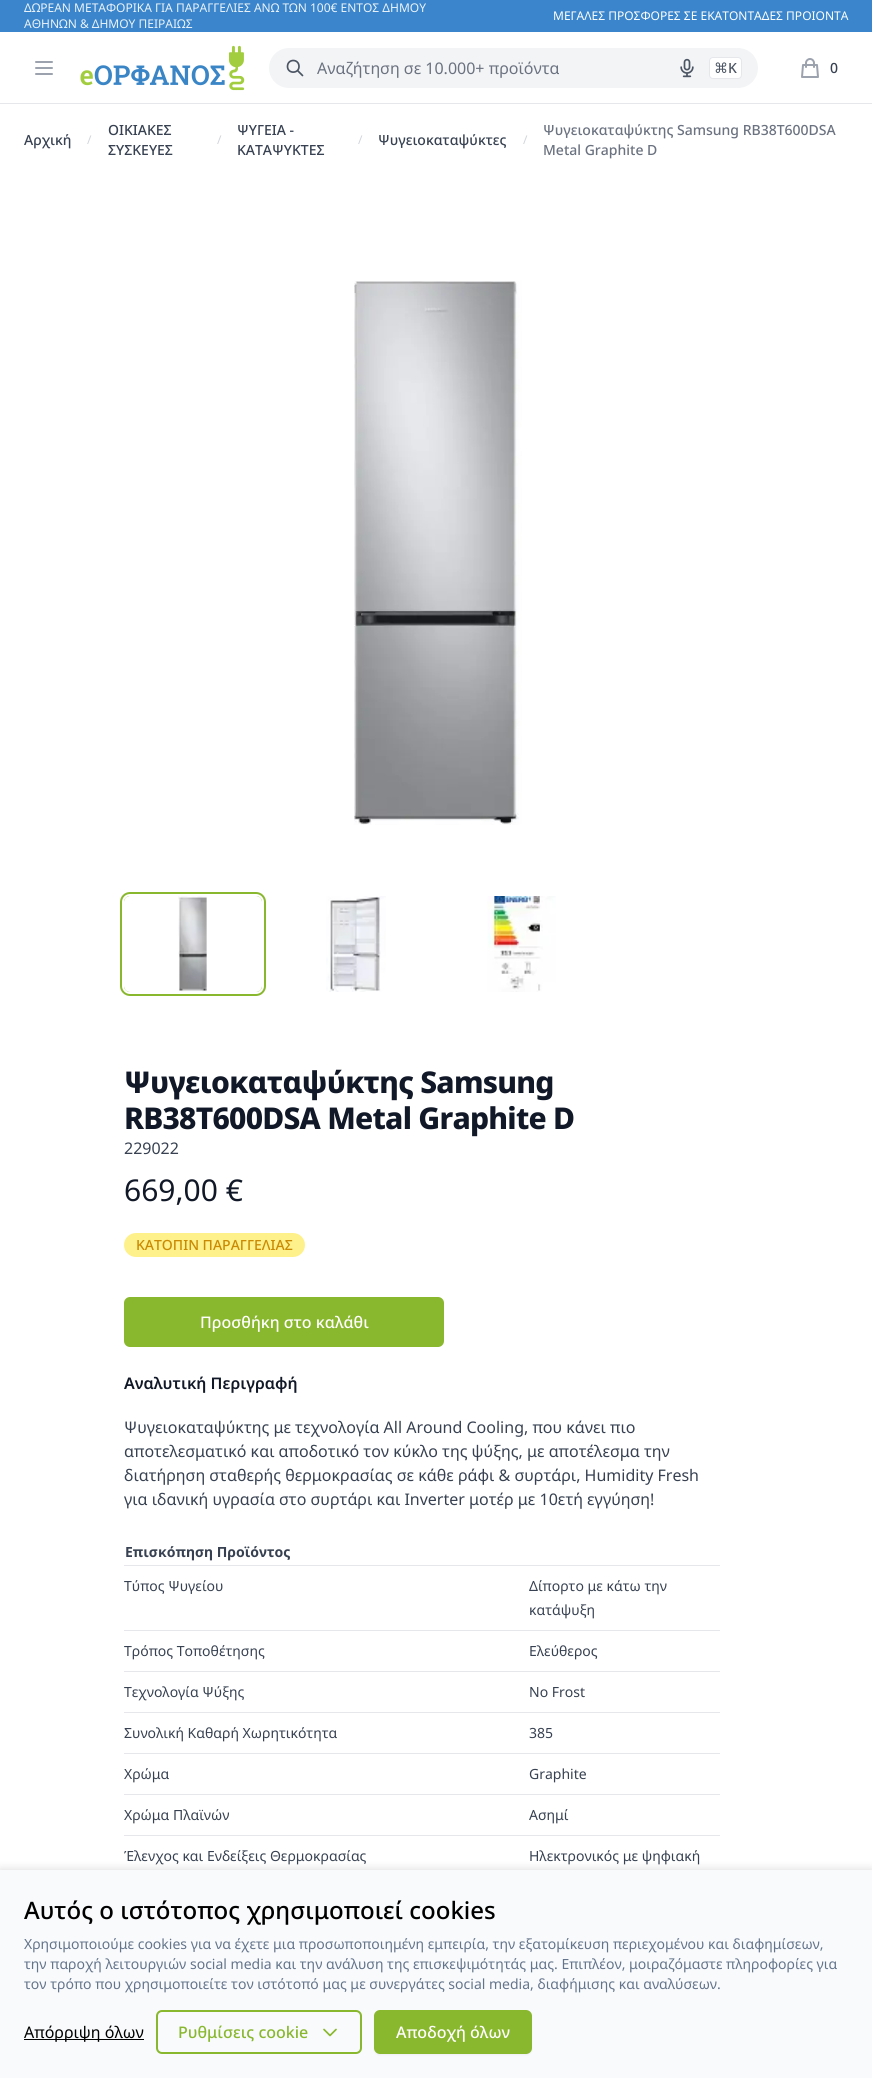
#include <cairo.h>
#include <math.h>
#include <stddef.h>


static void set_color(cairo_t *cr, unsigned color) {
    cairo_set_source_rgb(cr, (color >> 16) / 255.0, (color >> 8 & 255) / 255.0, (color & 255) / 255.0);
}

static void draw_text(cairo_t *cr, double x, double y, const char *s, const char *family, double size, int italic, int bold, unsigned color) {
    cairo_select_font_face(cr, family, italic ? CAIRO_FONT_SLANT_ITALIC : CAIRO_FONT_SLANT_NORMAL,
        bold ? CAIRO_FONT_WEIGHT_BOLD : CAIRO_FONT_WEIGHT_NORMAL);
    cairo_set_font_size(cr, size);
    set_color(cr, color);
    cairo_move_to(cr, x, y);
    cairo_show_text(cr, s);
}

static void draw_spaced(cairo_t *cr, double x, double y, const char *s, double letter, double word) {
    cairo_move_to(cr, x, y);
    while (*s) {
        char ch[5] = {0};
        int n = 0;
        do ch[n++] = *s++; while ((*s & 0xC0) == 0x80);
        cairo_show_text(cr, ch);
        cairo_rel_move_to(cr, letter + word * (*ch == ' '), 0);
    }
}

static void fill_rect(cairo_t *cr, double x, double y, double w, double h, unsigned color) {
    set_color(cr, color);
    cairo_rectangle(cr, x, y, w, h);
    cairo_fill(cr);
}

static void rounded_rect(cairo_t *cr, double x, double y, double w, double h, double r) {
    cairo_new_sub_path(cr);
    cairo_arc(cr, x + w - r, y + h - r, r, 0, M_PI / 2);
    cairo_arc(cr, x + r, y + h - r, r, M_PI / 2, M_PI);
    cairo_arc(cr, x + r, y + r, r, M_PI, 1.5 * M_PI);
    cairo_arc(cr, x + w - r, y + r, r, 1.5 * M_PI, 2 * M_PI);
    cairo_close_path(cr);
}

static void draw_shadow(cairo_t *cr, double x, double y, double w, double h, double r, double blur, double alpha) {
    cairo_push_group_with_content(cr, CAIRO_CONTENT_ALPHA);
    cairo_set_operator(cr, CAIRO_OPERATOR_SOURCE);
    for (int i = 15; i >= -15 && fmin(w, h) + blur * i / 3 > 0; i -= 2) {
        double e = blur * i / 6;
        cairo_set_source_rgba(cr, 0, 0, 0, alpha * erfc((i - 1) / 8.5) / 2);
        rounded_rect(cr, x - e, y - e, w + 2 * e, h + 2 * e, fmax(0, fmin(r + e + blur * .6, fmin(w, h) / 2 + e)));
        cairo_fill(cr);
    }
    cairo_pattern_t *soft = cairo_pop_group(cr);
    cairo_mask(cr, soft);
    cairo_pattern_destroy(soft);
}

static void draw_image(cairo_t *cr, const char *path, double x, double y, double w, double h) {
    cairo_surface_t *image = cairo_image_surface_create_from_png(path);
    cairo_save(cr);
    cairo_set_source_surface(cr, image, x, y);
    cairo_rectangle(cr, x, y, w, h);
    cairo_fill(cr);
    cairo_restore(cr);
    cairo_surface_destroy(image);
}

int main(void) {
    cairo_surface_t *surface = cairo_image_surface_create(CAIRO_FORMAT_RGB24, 872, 2078);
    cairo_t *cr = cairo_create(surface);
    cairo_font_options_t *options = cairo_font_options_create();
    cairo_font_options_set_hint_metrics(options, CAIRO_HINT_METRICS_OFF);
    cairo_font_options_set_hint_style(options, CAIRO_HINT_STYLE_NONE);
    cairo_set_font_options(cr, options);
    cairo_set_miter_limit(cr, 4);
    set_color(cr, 0xFFFFFF);
    cairo_paint(cr);
    fill_rect(cr, 0, 0, 872, 32, 0x3A85CB);
    draw_text(cr, 24, 12, "ΔΩΡΕΑΝ ΜΕΤΑΦΟΡΙΚΑ ΓΙΑ ΠΑΡΑΓΓΕΛΙΕΣ ΑΝΩ ΤΩΝ 100€ ΕΝΤΟΣ ΔΗΜΟΥ", "Noto Sans", 12, 0, 0, 0xEBF3FA);
    draw_text(cr, 24, 28, "ΑΘΗΝΩΝ & ΔΗΜΟΥ ΠΕΙΡΑΙΩΣ", "Noto Sans", 12, 0, 0, 0xEBF3FA);
    draw_text(cr, 553, 20, "ΜΕΓΑΛΕΣ ΠΡΟΣΦΟΡΕΣ ΣΕ ΕΚΑΤΟΝΤΑΔΕΣ ΠΡΟΙΟΝΤΑ", "Noto Sans", 12, 0, 0, 0xFFFFFF);
    cairo_new_path(cr);
    cairo_move_to(cr, 36, 62);
    cairo_line_to(cr, 52, 62);
    cairo_move_to(cr, 36, 68);
    cairo_line_to(cr, 52, 68);
    cairo_move_to(cr, 36, 74);
    cairo_line_to(cr, 52, 74);
    set_color(cr, 0x9CA3AF);
    cairo_set_line_cap(cr, CAIRO_LINE_CAP_ROUND);
    cairo_set_line_join(cr, CAIRO_LINE_JOIN_ROUND);
    cairo_stroke(cr);
    draw_image(cr, "assets/img1.png", 80, 45, 165, 46);
    set_color(cr, 0xF3F4F6);
    rounded_rect(cr, 269, 48, 489, 40, 20);
    cairo_fill(cr);
    draw_text(cr, 317, 74, "Αναζήτηση σε 10.000+ προϊόντα", "Noto Sans", 16, 0, 0, 0x6B7280);
    cairo_new_path(cr);
    cairo_move_to(cr, 302.5, 75.5);
    cairo_line_to(cr, 297.5, 70.5);
    cairo_move_to(cr, 299, 66.5);
    cairo_curve_to(cr, 299, 74, 287.5, 74, 287.5, 66.5);
    cairo_curve_to(cr, 287.5, 58.5, 299, 58.5, 299, 66.5);
    cairo_close_path(cr);
    set_color(cr, 0x4B5563);
    cairo_set_line_width(cr, 1.7);
    cairo_stroke(cr);
    draw_image(cr, "assets/img2.png", 680, 58, 14, 20);
    set_color(cr, 0xFFFFFF);
    rounded_rect(cr, 709.5, 57.5, 32, 21, 3.5);
    cairo_fill_preserve(cr);
    set_color(cr, 0xE5E7EB);
    cairo_set_line_width(cr, 1);
    cairo_set_line_cap(cr, CAIRO_LINE_CAP_BUTT);
    cairo_set_line_join(cr, CAIRO_LINE_JOIN_MITER);
    cairo_stroke(cr);
    draw_text(cr, 714, 73, "⌘", "DejaVu Sans", 14, 0, 0, 0x4B5563);
    draw_text(cr, 728, 73, "K", "Noto Sans Medium", 14, 0, 0, 0x4B5563);
    draw_image(cr, "assets/img3.png", 801, 58, 18, 20);
    draw_text(cr, 830, 73, "0", "Noto Sans Medium", 14, 0, 0, 0x374151);
    fill_rect(cr, 0, 103, 872, 1, 0xE5E7EB);
    draw_text(cr, 24, 145, "Αρχική", "Noto Sans Medium", 14, 0, 0, 0x374151);
    draw_text(cr, 87, 144, "/", "Noto Sans", 12, 0, 0, 0xD1D5DB);
    draw_text(cr, 108, 135, "ΟΙΚΙΑΚΕΣ", "Noto Sans Medium", 14, 0, 0, 0x374151);
    draw_text(cr, 108, 155, "ΣΥΣΚΕΥΕΣ", "Noto Sans Medium", 14, 0, 0, 0x374151);
    draw_text(cr, 217, 144, "/", "Noto Sans", 12, 0, 0, 0xD1D5DB);
    draw_text(cr, 237, 135, "ΨΥΓΕΙΑ -", "Noto Sans Medium", 14, 0, 0, 0x374151);
    draw_text(cr, 237, 155, "ΚΑΤΑΨΥΚΤΕΣ", "Noto Sans Medium", 14, 0, 0, 0x374151);
    draw_text(cr, 358, 144, "/", "Noto Sans", 12, 0, 0, 0xD1D5DB);
    draw_text(cr, 378, 145, "Ψυγειοκαταψύκτες", "Noto Sans Medium", 14, 0, 0, 0x374151);
    draw_text(cr, 523, 144, "/", "Noto Sans", 12, 0, 0, 0xD1D5DB);
    draw_text(cr, 543, 135, "Ψυγειοκαταψύκτης Samsung RB38T600DSA", "Noto Sans Medium", 14, 0, 0, 0x6B7280);
    draw_text(cr, 543, 155, "Metal Graphite D", "Noto Sans Medium", 14, 0, 0, 0x6B7280);
    draw_image(cr, "assets/img4.png", 354, 281, 168, 544);
    draw_image(cr, "assets/img5.png", 178, 896, 29, 96);
    rounded_rect(cr, 122, 894, 142, 100, 8);
    set_color(cr, 0x89B72E);
    cairo_set_line_width(cr, 4);
    cairo_stroke(cr);
    rounded_rect(cr, 123, 895, 140, 98, 7);
    set_color(cr, 0xFFFFFF);
    cairo_set_line_width(cr, 2);
    cairo_stroke(cr);
    draw_image(cr, "assets/img6.png", 326, 896, 60, 96);
    draw_image(cr, "assets/img7.png", 487, 896, 69, 96);
    cairo_select_font_face(cr, "Noto Sans ExtraBold", CAIRO_FONT_SLANT_NORMAL, CAIRO_FONT_WEIGHT_NORMAL);
    cairo_set_font_size(cr, 30);
    set_color(cr, 0x111827);
    draw_spaced(cr, 124, 1093, "Ψυγειοκαταψύκτης Samsung", -0.75, 0);
    draw_spaced(cr, 124, 1129, "RB38T600DSA Metal Graphite D", -0.75, 0);
    draw_text(cr, 124, 1154, "229022", "Noto Sans", 16, 0, 0, 0x374151);
    draw_text(cr, 124, 1201, "669,00 €", "Noto Sans", 30, 0, 0, 0x111827);
    set_color(cr, 0xFEF08A);
    rounded_rect(cr, 124, 1233, 181, 24, 12);
    cairo_fill(cr);
    draw_text(cr, 136, 1250, "ΚΑΤΟΠΙΝ ΠΑΡΑΓΓΕΛΙΑΣ", "Noto Sans Medium", 14, 0, 0, 0xCA8A04);
    set_color(cr, 0x89B72E);
    rounded_rect(cr, 124, 1297, 320, 50, 6);
    cairo_fill(cr);
    draw_text(cr, 200, 1328, "Προσθήκη στο καλάθι", "Noto Sans Medium", 16, 0, 0, 0xFFFFFF);
    draw_text(cr, 124, 1389, "Αναλυτική Περιγραφή", "Noto Sans SemiBold", 16, 0, 0, 0x111827);
    draw_text(cr, 124, 1433, "Ψυγειοκαταψύκτης με τεχνολογία All Around Cooling, που κάνει πιο", "Noto Sans", 16, 0, 0, 0x374151);
    draw_text(cr, 124, 1457, "αποτελεσματικό και αποδοτικό τον κύκλο της ψύξης, με αποτέλεσμα την", "Noto Sans", 16, 0, 0, 0x374151);
    draw_text(cr, 124, 1481, "διατήρηση σταθερής θερμοκρασίας σε κάθε ράφι & συρτάρι, Humidity Fresh", "Noto Sans", 16, 0, 0, 0x374151);
    draw_text(cr, 124, 1505, "για ιδανική υγρασία στο συρτάρι και Inverter μοτέρ με 10ετή εγγύηση!", "Noto Sans", 16, 0, 0, 0x374151);
    fill_rect(cr, 124, 1565, 596, 1, 0xE5E7EB);
    draw_text(cr, 125, 1557, "Επισκόπηση Προϊόντος", "Noto Sans", 14, 0, 1, 0x374151);
    fill_rect(cr, 124, 1630, 596, 1, 0xE5E7EB);
    draw_text(cr, 124, 1591, "Τύπος Ψυγείου", "Noto Sans", 14, 0, 0, 0x374151);
    draw_text(cr, 529, 1591, "Δίπορτο με κάτω την", "Noto Sans", 14, 0, 0, 0x374151);
    draw_text(cr, 529, 1615, "κατάψυξη", "Noto Sans", 14, 0, 0, 0x374151);
    fill_rect(cr, 124, 1671, 596, 1, 0xE5E7EB);
    draw_text(cr, 124, 1656, "Τρόπος Τοποθέτησης", "Noto Sans", 14, 0, 0, 0x374151);
    draw_text(cr, 529, 1656, "Ελεύθερος", "Noto Sans", 14, 0, 0, 0x374151);
    fill_rect(cr, 124, 1712, 596, 1, 0xE5E7EB);
    draw_text(cr, 124, 1697, "Τεχνολογία Ψύξης", "Noto Sans", 14, 0, 0, 0x374151);
    draw_text(cr, 529, 1697, "No Frost", "Noto Sans", 14, 0, 0, 0x374151);
    fill_rect(cr, 124, 1753, 596, 1, 0xE5E7EB);
    draw_text(cr, 124, 1738, "Συνολική Καθαρή Χωρητικότητα", "Noto Sans", 14, 0, 0, 0x374151);
    draw_text(cr, 529, 1738, "385", "Noto Sans", 14, 0, 0, 0x374151);
    fill_rect(cr, 124, 1794, 596, 1, 0xE5E7EB);
    draw_text(cr, 124, 1779, "Χρώμα", "Noto Sans", 14, 0, 0, 0x374151);
    draw_text(cr, 529, 1779, "Graphite", "Noto Sans", 14, 0, 0, 0x374151);
    fill_rect(cr, 124, 1835, 596, 1, 0xE5E7EB);
    draw_text(cr, 124, 1820, "Χρώμα Πλαϊνών", "Noto Sans", 14, 0, 0, 0x374151);
    draw_text(cr, 529, 1820, "Ασημί", "Noto Sans", 14, 0, 0, 0x374151);
    draw_text(cr, 124, 1861, "Έλενχος και Ενδείξεις Θερμοκρασίας", "Noto Sans", 14, 0, 0, 0x374151);
    draw_text(cr, 529, 1861, "Ηλεκτρονικός με ψηφιακή", "Noto Sans", 14, 0, 0, 0x374151);
    set_color(cr, 0x000000);
    draw_shadow(cr, 0, 1870, 872, 208, 0, 5, 0.15);
    fill_rect(cr, 0, 1870, 872, 208, 0xF8FAFC);
    draw_text(cr, 24, 1919, "Αυτός ο ιστότοπος χρησιμοποιεί cookies", "Noto Sans Medium", 24, 0, 0, 0x000000);
    draw_text(cr, 24, 1949, "Χρησιμοποιούμε cookies για να έχετε μια προσωποποιημένη εμπειρία, την εξατομίκευση περιεχομένου και διαφημίσεων,", "Noto Sans", 14, 0, 0, 0x64748B);
    draw_text(cr, 24, 1969, "την παροχή λειτουργιών social media και την ανάλυση της επισκεψιμότητάς μας. Επιπλέον, μοιραζόμαστε πληροφορίες για", "Noto Sans", 14, 0, 0, 0x64748B);
    draw_text(cr, 24, 1989, "τον τρόπο που χρησιμοποιείτε τον ιστότοπό μας με συνεργάτες social media, διαφήμισης και αναλύσεων.", "Noto Sans", 14, 0, 0, 0x64748B);
    fill_rect(cr, 24, 2039, 120, 1, 0x000000);
    draw_text(cr, 24, 2038, "Απόρριψη όλων", "Noto Sans", 16, 0, 0, 0x000000);
    rounded_rect(cr, 157, 2011, 204, 42, 5);
    set_color(cr, 0x89B72E);
    cairo_stroke(cr);
    draw_text(cr, 178, 2038, "Ρυθμίσεις cookie", "Noto Sans Medium", 16, 0, 0, 0x89B72E);
    cairo_new_path(cr);
    cairo_move_to(cr, 336, 2029.5);
    cairo_line_to(cr, 330, 2035.5);
    cairo_line_to(cr, 324, 2029.5);
    cairo_set_line_width(cr, 1.7);
    cairo_set_line_cap(cr, CAIRO_LINE_CAP_ROUND);
    cairo_set_line_join(cr, CAIRO_LINE_JOIN_ROUND);
    cairo_stroke(cr);
    set_color(cr, 0x000000);
    draw_shadow(cr, 374, 2011, 158, 44, 6, 1, 0.05);
    set_color(cr, 0x89B72E);
    rounded_rect(cr, 374, 2010, 158, 44, 6);
    cairo_fill(cr);
    draw_text(cr, 396, 2038, "Αποδοχή όλων", "Noto Sans Medium", 16, 0, 0, 0xFFFFFF);
    cairo_surface_write_to_png(surface, "output.png");
    cairo_font_options_destroy(options);
    cairo_destroy(cr);
    cairo_surface_destroy(surface);
    return 0;
}
